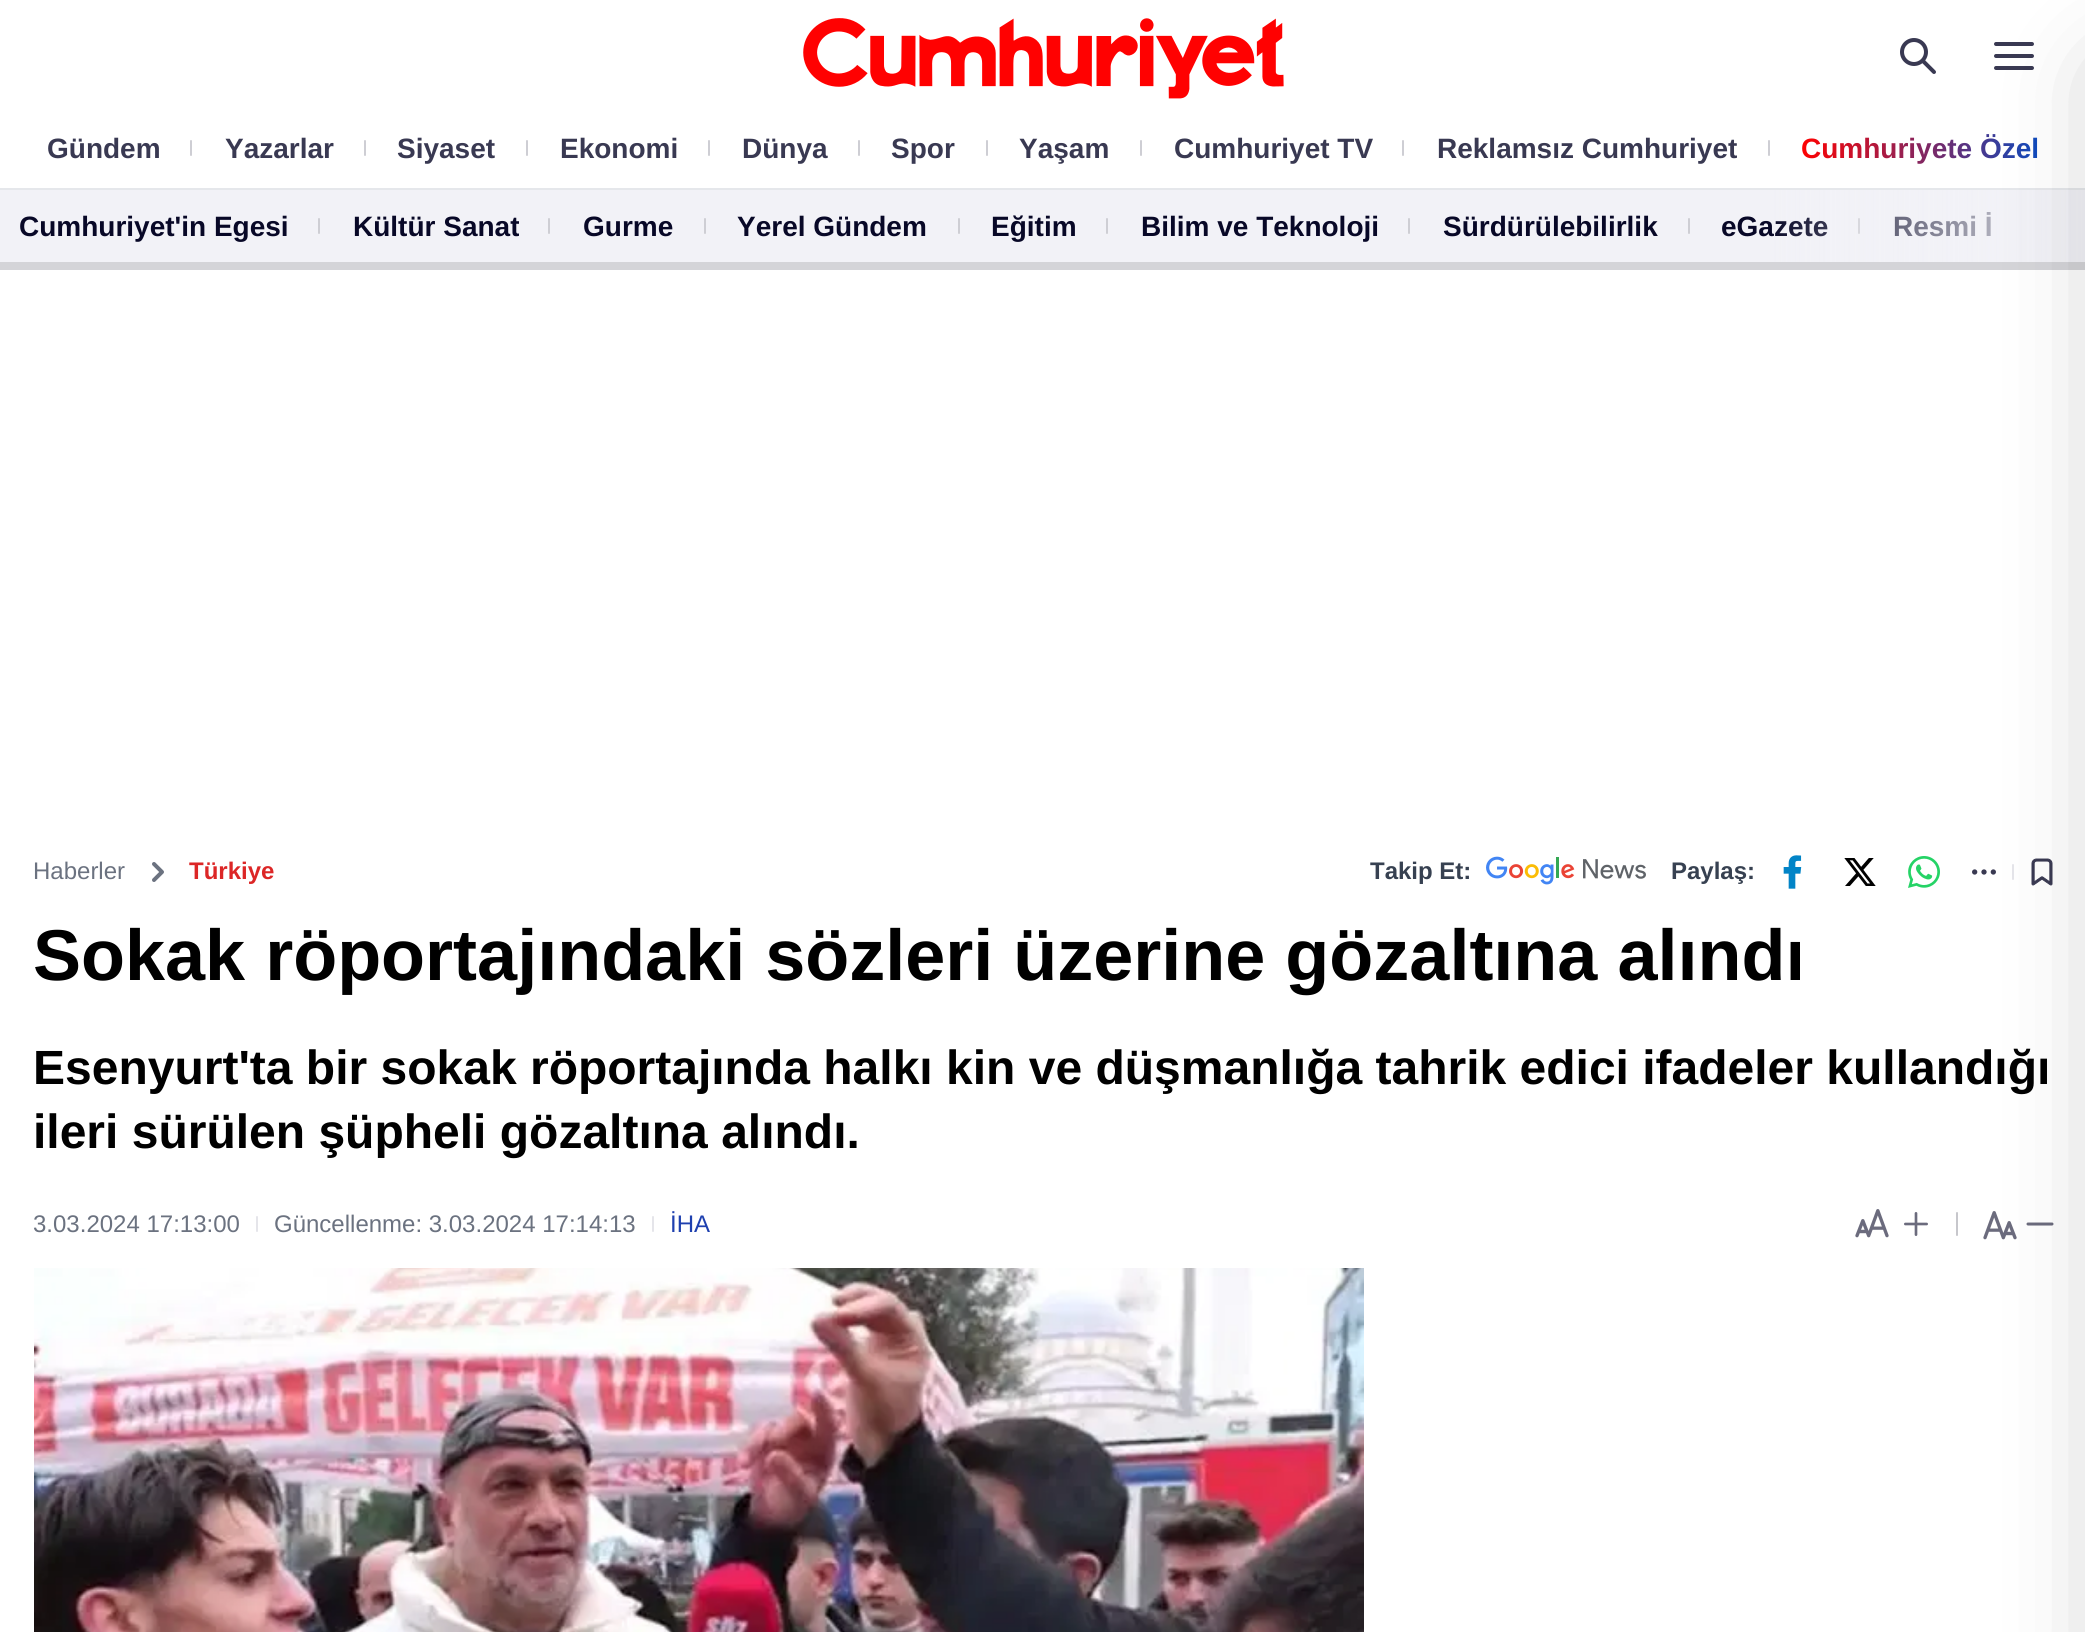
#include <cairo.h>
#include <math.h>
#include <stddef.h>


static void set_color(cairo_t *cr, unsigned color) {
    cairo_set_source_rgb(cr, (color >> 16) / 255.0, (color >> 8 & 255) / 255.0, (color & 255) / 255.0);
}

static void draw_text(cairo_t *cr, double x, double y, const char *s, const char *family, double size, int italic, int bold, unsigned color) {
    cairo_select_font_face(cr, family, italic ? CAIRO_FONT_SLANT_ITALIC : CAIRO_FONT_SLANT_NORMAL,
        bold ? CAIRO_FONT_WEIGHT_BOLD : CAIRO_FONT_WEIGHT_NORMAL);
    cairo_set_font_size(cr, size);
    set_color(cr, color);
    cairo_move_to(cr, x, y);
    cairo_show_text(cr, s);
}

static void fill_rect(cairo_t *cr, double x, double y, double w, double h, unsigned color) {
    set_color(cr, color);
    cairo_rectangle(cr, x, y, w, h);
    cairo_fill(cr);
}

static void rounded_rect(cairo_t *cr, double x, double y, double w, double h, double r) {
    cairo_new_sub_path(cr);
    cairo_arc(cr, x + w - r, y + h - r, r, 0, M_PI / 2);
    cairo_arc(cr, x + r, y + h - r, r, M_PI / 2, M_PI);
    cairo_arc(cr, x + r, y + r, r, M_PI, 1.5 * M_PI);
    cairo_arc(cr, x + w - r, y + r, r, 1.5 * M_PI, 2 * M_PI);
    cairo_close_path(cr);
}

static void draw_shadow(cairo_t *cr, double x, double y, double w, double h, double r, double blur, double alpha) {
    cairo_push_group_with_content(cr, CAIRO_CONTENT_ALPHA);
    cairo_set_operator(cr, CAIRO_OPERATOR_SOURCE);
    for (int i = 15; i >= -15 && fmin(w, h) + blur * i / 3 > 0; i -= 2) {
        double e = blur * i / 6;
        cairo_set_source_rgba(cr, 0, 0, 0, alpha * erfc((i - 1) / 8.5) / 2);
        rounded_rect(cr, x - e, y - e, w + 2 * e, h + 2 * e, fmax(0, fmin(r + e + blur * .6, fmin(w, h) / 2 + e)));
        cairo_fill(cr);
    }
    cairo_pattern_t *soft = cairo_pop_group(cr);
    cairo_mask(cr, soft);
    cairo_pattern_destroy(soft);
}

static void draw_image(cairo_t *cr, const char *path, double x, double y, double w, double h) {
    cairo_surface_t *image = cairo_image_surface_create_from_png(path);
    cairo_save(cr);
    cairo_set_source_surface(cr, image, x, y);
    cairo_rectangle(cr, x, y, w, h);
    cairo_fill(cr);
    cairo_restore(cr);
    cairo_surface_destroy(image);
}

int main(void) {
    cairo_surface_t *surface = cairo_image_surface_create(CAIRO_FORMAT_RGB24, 2085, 1632);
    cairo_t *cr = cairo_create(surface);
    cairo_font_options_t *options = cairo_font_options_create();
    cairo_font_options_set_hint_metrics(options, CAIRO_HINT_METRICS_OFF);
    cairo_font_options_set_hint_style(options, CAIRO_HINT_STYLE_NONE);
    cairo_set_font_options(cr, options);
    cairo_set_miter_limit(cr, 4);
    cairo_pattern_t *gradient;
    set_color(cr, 0xFFFFFF);
    cairo_paint(cr);
    draw_image(cr, "assets/img3.png", 1994, 42, 40, 28);
    fill_rect(cr, 0, 190, 2084, 72, 0xF2F2F7);
    fill_rect(cr, 0, 188, 2085, 2, 0xE5E7EB);
    draw_text(cr, 1721, 236, "eGazete", "Liberation Sans", 28, 0, 1, 0x080827);
    set_color(cr, 0xCECED4);
    rounded_rect(cr, 1858, 218, 2, 16, 1);
    cairo_fill(cr);
    draw_text(cr, 1893, 236, "Resmi İ", "Liberation Sans", 28, 0, 1, 0x080827);
    gradient = cairo_pattern_create_linear(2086, 226, 1766, 226);
    cairo_pattern_add_color_stop_rgba(gradient, 0, 0.949, 0.949, 0.969, 1);
    cairo_pattern_add_color_stop_rgba(gradient, 1, 0.949, 0.949, 0.969, 0);
    cairo_set_source(cr, gradient);
    cairo_pattern_destroy(gradient);
    cairo_rectangle(cr, 1773, 190, 312, 72);
    cairo_fill(cr);
    fill_rect(cr, 0, 262, 2085, 8, 0xD4D4D8);
    draw_image(cr, "assets/img8.png", 1972, 869, 24, 6);
    set_color(cr, 0xE5E5EA);
    rounded_rect(cr, 2012, 864, 2, 16, 1);
    cairo_fill(cr);
    draw_image(cr, "assets/img9.png", 2031, 858, 22, 28);
    draw_image(cr, "assets/img12.png", 1983, 1211, 34, 29);
    cairo_new_path(cr);
    cairo_move_to(cr, 2028, 1224);
    cairo_line_to(cr, 2052, 1224);
    set_color(cr, 0x6B6B7D);
    cairo_set_line_width(cr, 3);
    cairo_set_line_cap(cr, CAIRO_LINE_CAP_ROUND);
    cairo_stroke(cr);
    set_color(cr, 0x000000);
    draw_shadow(cr, 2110, 74, 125, 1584, 0, 50, 0.25);
    draw_image(cr, "assets/img1.png", 803, 18, 481, 81);
    draw_image(cr, "assets/img2.png", 1900, 38, 36, 36);
    draw_text(cr, 47, 158, "Gündem", "Liberation Sans", 28, 0, 1, 0x393952);
    set_color(cr, 0xCECED4);
    rounded_rect(cr, 190, 140, 2, 16, 1);
    cairo_fill(cr);
    draw_text(cr, 225, 158, "Yazarlar", "Liberation Sans", 28, 0, 1, 0x393952);
    set_color(cr, 0xCECED4);
    rounded_rect(cr, 364, 140, 2, 16, 1);
    cairo_fill(cr);
    draw_text(cr, 397, 158, "Siyaset", "Liberation Sans", 28, 0, 1, 0x393952);
    set_color(cr, 0xCECED4);
    rounded_rect(cr, 526, 140, 2, 16, 1);
    cairo_fill(cr);
    draw_text(cr, 560, 158, "Ekonomi", "Liberation Sans", 28, 0, 1, 0x393952);
    set_color(cr, 0xCECED4);
    rounded_rect(cr, 708, 140, 2, 16, 1);
    cairo_fill(cr);
    draw_text(cr, 742, 158, "Dünya", "Liberation Sans", 28, 0, 1, 0x393952);
    set_color(cr, 0xCECED4);
    rounded_rect(cr, 858, 140, 2, 16, 1);
    cairo_fill(cr);
    draw_text(cr, 891, 158, "Spor", "Liberation Sans", 28, 0, 1, 0x393952);
    set_color(cr, 0xCECED4);
    rounded_rect(cr, 986, 140, 2, 16, 1);
    cairo_fill(cr);
    draw_text(cr, 1019, 158, "Yaşam", "Liberation Sans", 28, 0, 1, 0x393952);
    set_color(cr, 0xCECED4);
    rounded_rect(cr, 1140, 140, 2, 16, 1);
    cairo_fill(cr);
    draw_text(cr, 1174, 158, "Cumhuriyet TV", "Liberation Sans", 28, 0, 1, 0x393952);
    set_color(cr, 0xCECED4);
    rounded_rect(cr, 1402, 140, 2, 16, 1);
    cairo_fill(cr);
    draw_text(cr, 1437, 158, "Reklamsız Cumhuriyet", "Liberation Sans", 28, 0, 1, 0x393952);
    set_color(cr, 0xCECED4);
    rounded_rect(cr, 1768, 140, 2, 16, 1);
    cairo_fill(cr);
    gradient = cairo_pattern_create_linear(1801, 148, 2039, 148);
    cairo_pattern_add_color_stop_rgba(gradient, 0, 1, 0.004, 0.004, 1);
    cairo_pattern_add_color_stop_rgba(gradient, 1, 0.051, 0.29, 0.737, 1);
    cairo_set_source(cr, gradient);
    cairo_pattern_destroy(gradient);
    cairo_move_to(cr, 1801, 158);
    cairo_show_text(cr, "Cumhuriyete Özel");
    draw_text(cr, 19, 236, "Cumhuriyet'in Egesi", "Liberation Sans", 28, 0, 1, 0x080827);
    set_color(cr, 0xCECED4);
    rounded_rect(cr, 318, 218, 2, 16, 1);
    cairo_fill(cr);
    draw_text(cr, 353, 236, "Kültür Sanat", "Liberation Sans", 28, 0, 1, 0x080827);
    set_color(cr, 0xCECED4);
    rounded_rect(cr, 548, 218, 2, 16, 1);
    cairo_fill(cr);
    draw_text(cr, 583, 236, "Gurme", "Liberation Sans", 28, 0, 1, 0x080827);
    set_color(cr, 0xCECED4);
    rounded_rect(cr, 704, 218, 2, 16, 1);
    cairo_fill(cr);
    draw_text(cr, 737, 236, "Yerel Gündem", "Liberation Sans", 28, 0, 1, 0x080827);
    set_color(cr, 0xCECED4);
    rounded_rect(cr, 958, 218, 2, 16, 1);
    cairo_fill(cr);
    draw_text(cr, 991, 236, "Eğitim", "Liberation Sans", 28, 0, 1, 0x080827);
    set_color(cr, 0xCECED4);
    rounded_rect(cr, 1106, 218, 2, 16, 1);
    cairo_fill(cr);
    draw_text(cr, 1141, 236, "Bilim ve Teknoloji", "Liberation Sans", 28, 0, 1, 0x080827);
    set_color(cr, 0xCECED4);
    rounded_rect(cr, 1408, 218, 2, 16, 1);
    cairo_fill(cr);
    draw_text(cr, 1443, 236, "Sürdürülebilirlik", "Liberation Sans", 28, 0, 1, 0x080827);
    set_color(cr, 0xCECED4);
    rounded_rect(cr, 1688, 218, 2, 16, 1);
    cairo_fill(cr);
    draw_text(cr, 33, 879, "Haberler", "Liberation Sans", 24, 0, 0, 0x6B7280);
    cairo_new_path(cr);
    cairo_move_to(cr, 154, 880);
    cairo_line_to(cr, 162, 872);
    cairo_line_to(cr, 154, 864);
    cairo_set_line_width(cr, 4);
    cairo_set_line_join(cr, CAIRO_LINE_JOIN_ROUND);
    cairo_stroke(cr);
    draw_text(cr, 189, 879, "Türkiye", "Liberation Sans", 24, 0, 1, 0xDC2626);
    draw_text(cr, 1370, 879, "Takip Et:", "Liberation Sans", 24, 0, 1, 0x374151);
    draw_image(cr, "assets/img4.png", 1486, 856, 160, 29);
    draw_text(cr, 1671, 879, "Paylaş:", "Liberation Sans", 24, 0, 1, 0x374151);
    draw_image(cr, "assets/img5.png", 1783, 855, 19, 34);
    draw_image(cr, "assets/img6.png", 1844, 858, 32, 28);
    draw_image(cr, "assets/img7.png", 1908, 856, 32, 32);
    draw_text(cr, 33, 980, "Sokak röportajındaki sözleri üzerine gözaltına alındı", "Liberation Sans", 72, 0, 1, 0x000000);
    draw_text(cr, 33, 1084, "Esenyurt'ta bir sokak röportajında halkı kin ve düşmanlığa tahrik edici ifadeler kullandığı", "Liberation Sans", 48, 0, 1, 0x000000);
    draw_text(cr, 33, 1148, "ileri sürülen şüpheli gözaltına alındı.", "Liberation Sans", 48, 0, 1, 0x000000);
    draw_text(cr, 33, 1232, "3.03.2024 17:13:00", "Liberation Sans", 24, 0, 0, 0x6B7280);
    set_color(cr, 0xE5E5EA);
    rounded_rect(cr, 256, 1216, 2, 16, 1);
    cairo_fill(cr);
    draw_text(cr, 274, 1232, "Güncellenme: 3.03.2024 17:14:13", "Liberation Sans", 24, 0, 0, 0x6B7280);
    set_color(cr, 0xE5E5EA);
    rounded_rect(cr, 652, 1216, 2, 16, 1);
    cairo_fill(cr);
    draw_text(cr, 670, 1232, "İHA", "Liberation Sans", 24, 0, 0, 0x1E40AF);
    draw_image(cr, "assets/img10.png", 1855, 1209, 34, 29);
    draw_image(cr, "assets/img11.png", 1904, 1212, 24, 24);
    set_color(cr, 0xC7C7CC);
    rounded_rect(cr, 1956, 1212, 2, 24, 1);
    cairo_fill(cr);
    draw_image(cr, "assets/img13.png", 34, 1268, 1330, 364);
    cairo_surface_write_to_png(surface, "output.png");
    cairo_font_options_destroy(options);
    cairo_destroy(cr);
    cairo_surface_destroy(surface);
    return 0;
}
